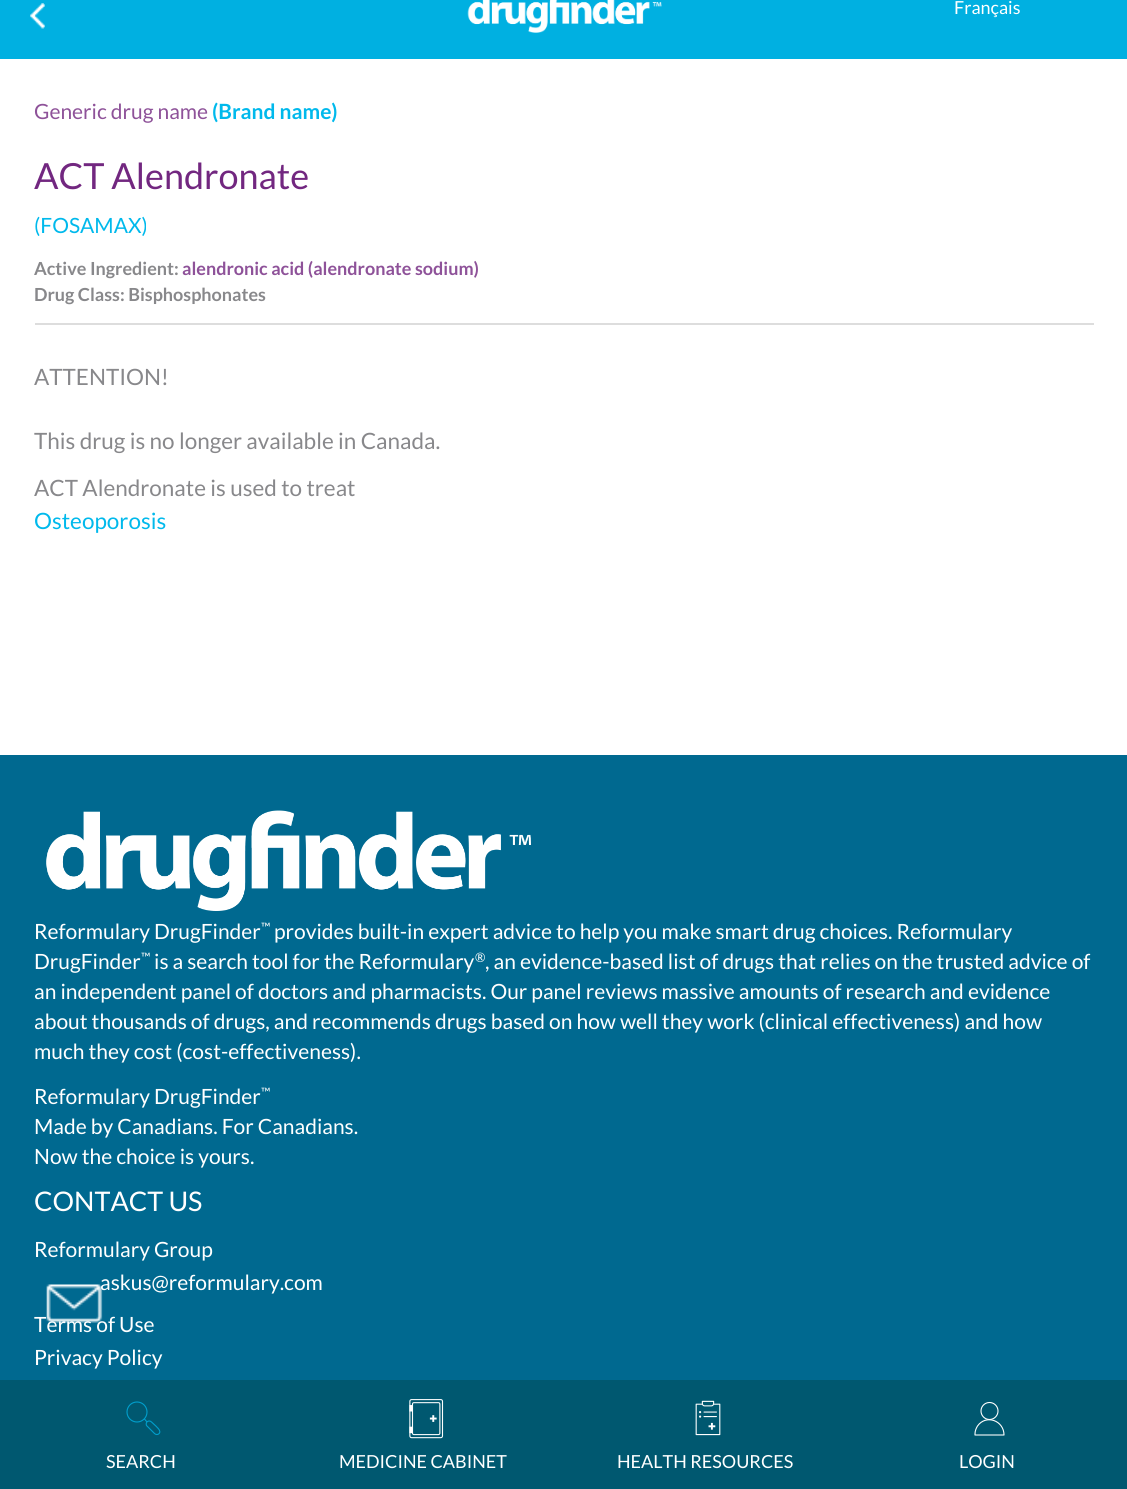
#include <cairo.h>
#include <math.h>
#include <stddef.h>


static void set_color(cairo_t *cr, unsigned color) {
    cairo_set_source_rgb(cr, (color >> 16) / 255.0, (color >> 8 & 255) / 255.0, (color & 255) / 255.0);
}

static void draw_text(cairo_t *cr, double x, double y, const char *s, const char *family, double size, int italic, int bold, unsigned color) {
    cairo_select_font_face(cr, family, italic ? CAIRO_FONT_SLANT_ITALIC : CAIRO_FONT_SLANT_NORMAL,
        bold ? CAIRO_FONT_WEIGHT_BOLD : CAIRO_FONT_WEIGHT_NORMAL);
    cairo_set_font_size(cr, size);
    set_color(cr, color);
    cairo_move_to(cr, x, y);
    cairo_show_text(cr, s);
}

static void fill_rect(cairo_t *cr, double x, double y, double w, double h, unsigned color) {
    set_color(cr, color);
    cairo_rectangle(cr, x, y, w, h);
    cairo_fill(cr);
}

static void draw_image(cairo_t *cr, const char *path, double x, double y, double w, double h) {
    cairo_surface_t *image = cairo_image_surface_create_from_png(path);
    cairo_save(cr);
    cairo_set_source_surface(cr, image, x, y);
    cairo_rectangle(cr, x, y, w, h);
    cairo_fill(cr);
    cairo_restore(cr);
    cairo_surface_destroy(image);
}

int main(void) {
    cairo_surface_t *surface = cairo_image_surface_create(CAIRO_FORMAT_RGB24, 1127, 1489);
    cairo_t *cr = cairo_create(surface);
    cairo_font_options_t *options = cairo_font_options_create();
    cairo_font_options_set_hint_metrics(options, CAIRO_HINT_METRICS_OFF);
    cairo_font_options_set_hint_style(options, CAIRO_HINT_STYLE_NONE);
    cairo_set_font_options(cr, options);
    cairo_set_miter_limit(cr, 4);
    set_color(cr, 0xFFFFFF);
    cairo_paint(cr);
    fill_rect(cr, 0, 0, 1127, 59, 0x00B0E1);
    draw_image(cr, "assets/img1.png", 30, 3, 15, 26);
    draw_image(cr, "assets/img2.png", 467, 0, 195, 33);
    draw_text(cr, 954, 14, "Français", "Lato", 18, 0, 0, 0xFFFFFF);
    fill_rect(cr, 0, 1380, 1127, 109, 0x005870);
    cairo_new_path(cr);
    cairo_arc(cr, 137, 1412, 10, 0, 2 * M_PI);
    set_color(cr, 0x009FCD);
    cairo_set_line_width(cr, 1.1);
    cairo_stroke(cr);
    cairo_new_path(cr);
    cairo_move_to(cr, 144.5, 1419);
    cairo_line_to(cr, 147, 1422);
    cairo_move_to(cr, 154.5, 1433.5);
    cairo_line_to(cr, 146.5, 1425.5);
    cairo_curve_to(cr, 145, 1422, 149, 1419.5, 151.5, 1422);
    cairo_curve_to(cr, 153, 1423.5, 159, 1428.5, 159.5, 1430.5);
    cairo_curve_to(cr, 161, 1433.5, 157, 1436, 154.5, 1433.5);
    cairo_close_path(cr);
    cairo_set_line_cap(cr, CAIRO_LINE_CAP_ROUND);
    cairo_set_line_join(cr, CAIRO_LINE_JOIN_ROUND);
    cairo_stroke(cr);
    draw_text(cr, 106, 1468, "SEARCH", "Lato", 18, 0, 0, 0xFFFFFF);
    draw_image(cr, "assets/img3.png", 409, 1399, 35, 40);
    draw_text(cr, 339, 1468, "MEDICINE CABINET", "Lato", 18, 0, 0, 0xFFFFFF);
    draw_image(cr, "assets/img4.png", 695, 1400, 26, 36);
    draw_text(cr, 617, 1468, "HEALTH RESOURCES", "Lato", 18, 0, 0, 0xFFFFFF);
    cairo_new_path(cr);
    cairo_arc(cr, 989.5, 1411, 8.5, 0, 2 * M_PI);
    cairo_set_line_cap(cr, CAIRO_LINE_CAP_BUTT);
    cairo_set_line_join(cr, CAIRO_LINE_JOIN_MITER);
    cairo_stroke(cr);
    cairo_new_path(cr);
    cairo_move_to(cr, 975, 1434);
    cairo_curve_to(cr, 975, 1431, 976, 1428.5, 977.5, 1426);
    cairo_curve_to(cr, 986, 1414, 1004, 1420.5, 1004, 1435);
    cairo_line_to(cr, 975, 1435);
    cairo_close_path(cr);
    cairo_set_line_cap(cr, CAIRO_LINE_CAP_ROUND);
    cairo_set_line_join(cr, CAIRO_LINE_JOIN_ROUND);
    cairo_stroke(cr);
    draw_text(cr, 959, 1468, "LOGIN", "Lato", 18, 0, 0, 0xFFFFFF);
    fill_rect(cr, 35, 323, 1059, 2, 0xDDDDDD);
    draw_text(cr, 34, 119, "Generic drug name", "Lato", 21, 0, 0, 0x8E5299);
    draw_text(cr, 212, 119, "(Brand name)", "Lato", 21, 0, 1, 0x00B9EC);
    draw_text(cr, 34, 189, "ACT Alendronate", "Lato", 36, 0, 0, 0x722780);
    draw_text(cr, 34, 233, "(FOSAMAX)", "Lato", 21, 0, 0, 0x00B9EC);
    draw_text(cr, 34, 275, "Active Ingredient:", "Lato", 18, 0, 1, 0x88888B);
    draw_text(cr, 182, 275, "alendronic acid (alendronate sodium)", "Lato", 18, 0, 1, 0x8E5299);
    draw_text(cr, 34, 301, "Drug Class: Bisphosphonates", "Lato", 18, 0, 1, 0x88888B);
    draw_text(cr, 34, 385, "ATTENTION!", "Lato", 22.5, 0, 0, 0x88888B);
    draw_text(cr, 34, 449, "This drug is no longer available in Canada.", "Lato", 22.5, 0, 0, 0x88888B);
    draw_text(cr, 34, 496, "ACT Alendronate is used to treat", "Lato", 22.5, 0, 0, 0x88888B);
    draw_text(cr, 34, 529, "Osteoporosis", "Lato", 22.5, 0, 0, 0x00B9EC);
    fill_rect(cr, 0, 755, 1127, 625, 0x006990);
    draw_image(cr, "assets/img5.png", 46, 810, 485, 101);
    draw_text(cr, 34, 939, "Reformulary DrugFinder", "Lato", 21, 0, 0, 0xFFFFFF);
    draw_text(cr, 261, 932, "™", "Lato", 13, 0, 0, 0xFFFFFF);
    draw_text(cr, 274, 939, "provides built-in expert advice to help you make smart drug choices. Reformulary", "Lato", 21, 0, 0, 0xFFFFFF);
    draw_text(cr, 34, 969, "DrugFinder", "Lato", 21, 0, 0, 0xFFFFFF);
    draw_text(cr, 141, 962, "™", "Lato", 13, 0, 0, 0xFFFFFF);
    draw_text(cr, 154, 969, "is a search tool for the Reformulary", "Lato", 21, 0, 0, 0xFFFFFF);
    draw_text(cr, 475, 962, "®", "Lato", 13, 0, 0, 0xFFFFFF);
    draw_text(cr, 485, 969, ", an evidence-based list of drugs that relies on the trusted advice of", "Lato", 21, 0, 0, 0xFFFFFF);
    draw_text(cr, 34, 999, "an independent panel of doctors and pharmacists. Our panel reviews massive amounts of research and evidence", "Lato", 21, 0, 0, 0xFFFFFF);
    draw_text(cr, 34, 1029, "about thousands of drugs, and recommends drugs based on how well they work (clinical effectiveness) and how", "Lato", 21, 0, 0, 0xFFFFFF);
    draw_text(cr, 34, 1059, "much they cost (cost-effectiveness).", "Lato", 21, 0, 0, 0xFFFFFF);
    draw_text(cr, 34, 1104, "Reformulary DrugFinder", "Lato", 21, 0, 0, 0xFFFFFF);
    draw_text(cr, 261, 1097, "™", "Lato", 13, 0, 0, 0xFFFFFF);
    draw_text(cr, 34, 1134, "Made by Canadians. For Canadians.", "Lato", 21, 0, 0, 0xFFFFFF);
    draw_text(cr, 34, 1164, "Now the choice is yours.", "Lato", 21, 0, 0, 0xFFFFFF);
    draw_text(cr, 34, 1211, "CONTACT US", "Lato", 27, 0, 0, 0xFFFFFF);
    draw_text(cr, 34, 1257, "Reformulary Group", "Lato", 21, 0, 0, 0xFFFFFF);
    draw_text(cr, 100, 1290, "askus@reformulary.com", "Lato", 21, 0, 0, 0xFFFFFF);
    draw_image(cr, "assets/img6.png", 46, 1284, 57, 39);
    draw_text(cr, 34, 1332, "Terms of Use", "Lato", 21, 0, 0, 0xFFFFFF);
    draw_text(cr, 34, 1365, "Privacy Policy", "Lato", 21, 0, 0, 0xFFFFFF);
    cairo_surface_write_to_png(surface, "output.png");
    cairo_font_options_destroy(options);
    cairo_destroy(cr);
    cairo_surface_destroy(surface);
    return 0;
}
